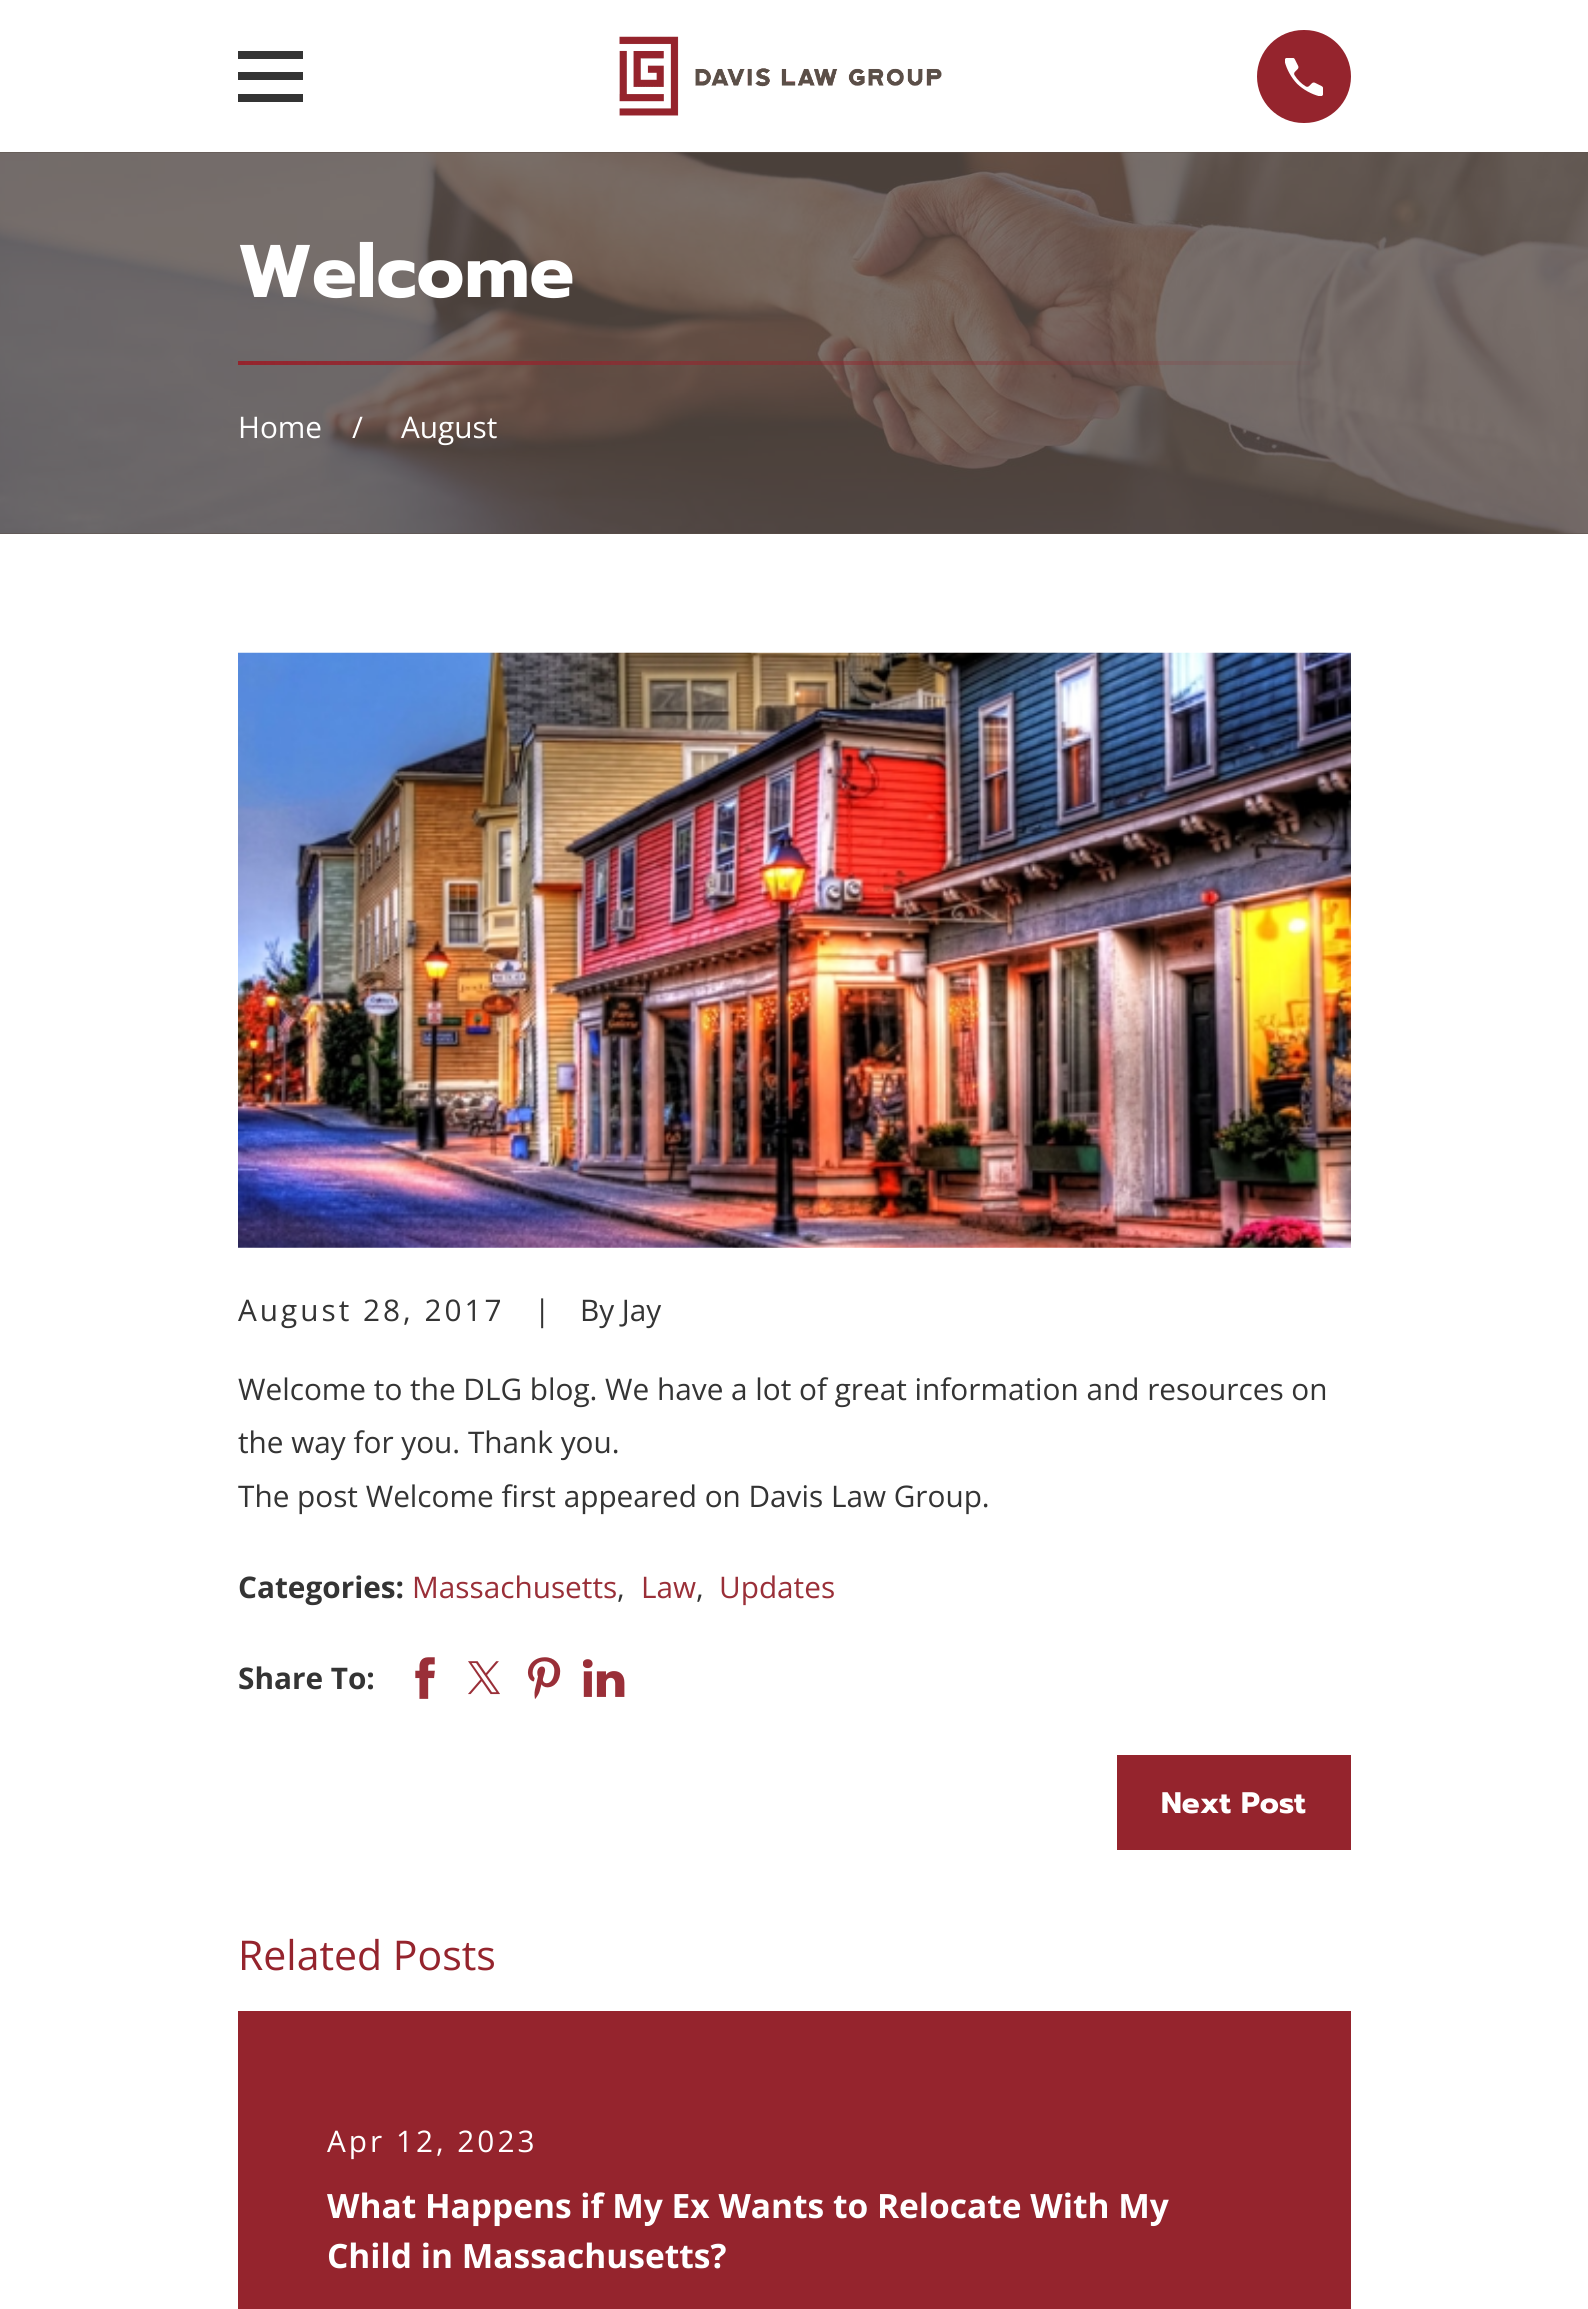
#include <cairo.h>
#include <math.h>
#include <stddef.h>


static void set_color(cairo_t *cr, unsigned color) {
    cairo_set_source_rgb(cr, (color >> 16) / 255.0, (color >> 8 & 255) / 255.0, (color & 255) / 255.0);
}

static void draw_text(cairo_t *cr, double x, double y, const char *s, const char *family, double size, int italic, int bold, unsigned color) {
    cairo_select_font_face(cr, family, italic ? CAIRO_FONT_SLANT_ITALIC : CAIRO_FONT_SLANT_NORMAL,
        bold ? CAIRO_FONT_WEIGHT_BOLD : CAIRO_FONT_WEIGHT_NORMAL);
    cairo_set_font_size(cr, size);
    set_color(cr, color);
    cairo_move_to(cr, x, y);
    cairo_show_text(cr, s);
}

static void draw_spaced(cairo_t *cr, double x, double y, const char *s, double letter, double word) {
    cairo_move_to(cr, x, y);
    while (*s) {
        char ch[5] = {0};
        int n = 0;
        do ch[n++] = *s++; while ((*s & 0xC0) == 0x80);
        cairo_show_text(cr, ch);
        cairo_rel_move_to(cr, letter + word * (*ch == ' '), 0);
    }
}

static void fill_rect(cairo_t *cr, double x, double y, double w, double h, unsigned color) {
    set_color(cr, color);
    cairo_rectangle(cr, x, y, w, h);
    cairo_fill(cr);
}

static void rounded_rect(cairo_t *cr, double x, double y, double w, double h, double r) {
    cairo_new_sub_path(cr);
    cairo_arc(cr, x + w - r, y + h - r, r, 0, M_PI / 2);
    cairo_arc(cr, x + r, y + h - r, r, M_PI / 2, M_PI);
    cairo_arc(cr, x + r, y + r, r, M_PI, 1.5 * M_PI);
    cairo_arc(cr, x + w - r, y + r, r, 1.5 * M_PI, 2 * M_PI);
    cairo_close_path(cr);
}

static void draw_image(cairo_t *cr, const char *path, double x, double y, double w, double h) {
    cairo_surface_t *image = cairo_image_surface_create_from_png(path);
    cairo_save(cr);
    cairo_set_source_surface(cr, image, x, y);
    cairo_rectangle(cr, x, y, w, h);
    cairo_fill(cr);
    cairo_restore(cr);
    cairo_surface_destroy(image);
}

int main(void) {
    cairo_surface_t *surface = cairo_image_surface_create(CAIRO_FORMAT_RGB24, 1588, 2309);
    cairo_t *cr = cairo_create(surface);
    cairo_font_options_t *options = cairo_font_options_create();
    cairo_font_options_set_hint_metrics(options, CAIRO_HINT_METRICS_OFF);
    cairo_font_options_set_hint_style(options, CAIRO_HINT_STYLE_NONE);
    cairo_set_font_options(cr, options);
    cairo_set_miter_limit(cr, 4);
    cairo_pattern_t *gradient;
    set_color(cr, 0xFFFFFF);
    cairo_paint(cr);
    set_color(cr, 0x343434);
    cairo_new_path(cr);
    cairo_move_to(cr, 238, 51);
    cairo_line_to(cr, 238, 59);
    cairo_line_to(cr, 303, 59);
    cairo_line_to(cr, 303, 51);
    cairo_close_path(cr);
    cairo_move_to(cr, 238, 72);
    cairo_line_to(cr, 238, 80);
    cairo_line_to(cr, 303, 80);
    cairo_line_to(cr, 303, 72);
    cairo_close_path(cr);
    cairo_move_to(cr, 238, 94);
    cairo_line_to(cr, 238, 102);
    cairo_line_to(cr, 303, 102);
    cairo_line_to(cr, 303, 94);
    cairo_close_path(cr);
    cairo_fill(cr);
    draw_image(cr, "assets/img1.png", 619, 36, 323, 80);
    set_color(cr, 0x95242D);
    rounded_rect(cr, 1257, 30, 94, 93, 46.5);
    cairo_fill(cr);
    draw_image(cr, "assets/img2.png", 1285, 58, 38, 38);
    fill_rect(cr, 0, 152, 1588, 382, 0x5C5048);
    draw_image(cr, "assets/img3.png", 0, 152, 1588, 382);
    draw_text(cr, 238, 297, "Welcome", "Prompt", 74.5, 0, 1, 0xFFFFFF);
    gradient = cairo_pattern_create_linear(238, 362, 1351, 362);
    cairo_pattern_add_color_stop_rgba(gradient, 0, 0.584, 0.141, 0.176, 1);
    cairo_pattern_add_color_stop_rgba(gradient, 1, 0.584, 0.141, 0.176, 0);
    cairo_set_source(cr, gradient);
    cairo_pattern_destroy(gradient);
    cairo_rectangle(cr, 238, 361, 1072, 4);
    cairo_fill(cr);
    draw_text(cr, 238, 438, "Home", "Open Sans", 29.75, 0, 0, 0xFFFFFF);
    draw_text(cr, 352, 438, "/", "Open Sans", 29.75, 0, 0, 0xFFFFFF);
    draw_text(cr, 401, 438, "August", "Open Sans", 29.75, 0, 0, 0xFFFFFF);
    draw_image(cr, "assets/img4.png", 238, 652, 1113, 596);
    set_color(cr, 0x343434);
    draw_spaced(cr, 238, 1321, "August 28, 2017", 3, 0);
    draw_text(cr, 534, 1321, "|", "Open Sans", 29.75, 0, 0, 0x343434);
    draw_text(cr, 580, 1321, "By Jay", "Open Sans", 29.75, 0, 0, 0x343434);
    draw_text(cr, 238, 1400, "Welcome to the DLG blog. We have a lot of great information and resources on", "Open Sans", 29.75, 0, 0, 0x343434);
    draw_text(cr, 238, 1453, "the way for you. Thank you.", "Open Sans", 29.75, 0, 0, 0x343434);
    draw_text(cr, 238, 1507, "The post Welcome first appeared on Davis Law Group.", "Open Sans", 29.75, 0, 0, 0x343434);
    draw_text(cr, 238, 1598, "Categories:", "Open Sans", 29.75, 0, 1, 0x343434);
    draw_text(cr, 412, 1598, "Massachusetts", "Open Sans", 29.75, 0, 0, 0x9A2F38);
    draw_text(cr, 617, 1598, ",", "Open Sans", 29.75, 0, 0, 0x343434);
    draw_text(cr, 641, 1598, "Law", "Open Sans", 29.75, 0, 0, 0x9A2F38);
    draw_text(cr, 696, 1598, ",", "Open Sans", 29.75, 0, 0, 0x343434);
    draw_text(cr, 719, 1598, "Updates", "Open Sans", 29.75, 0, 0, 0x9A2F38);
    draw_text(cr, 238, 1689, "Share To:", "Open Sans", 29.75, 0, 1, 0x343434);
    draw_image(cr, "assets/img5.png", 415, 1657, 20, 42);
    draw_image(cr, "assets/img6.png", 468, 1661, 32, 34);
    draw_image(cr, "assets/img7.png", 527, 1657, 34, 42);
    draw_image(cr, "assets/img8.png", 583, 1659, 42, 38);
    fill_rect(cr, 1117, 1755, 234, 95, 0x95242D);
    draw_text(cr, 1161, 1813, "Next Post", "Prompt", 29.75, 0, 1, 0xFFFFFF);
    draw_text(cr, 238, 1970, "Related Posts", "Open Sans", 41, 0, 0, 0x95242D);
    fill_rect(cr, 238, 2011, 1113, 298, 0x95242D);
    cairo_set_font_size(cr, 29.75);
    set_color(cr, 0xFFFFFF);
    draw_spaced(cr, 327, 2152, "Apr 12, 2023", 3, 0);
    draw_text(cr, 327, 2218, "What Happens if My Ex Wants to Relocate With My", "Open Sans", 33.5, 0, 1, 0xFFFFFF);
    draw_text(cr, 327, 2268, "Child in Massachusetts?", "Open Sans", 33.5, 0, 1, 0xFFFFFF);
    cairo_surface_write_to_png(surface, "output.png");
    cairo_font_options_destroy(options);
    cairo_destroy(cr);
    cairo_surface_destroy(surface);
    return 0;
}
